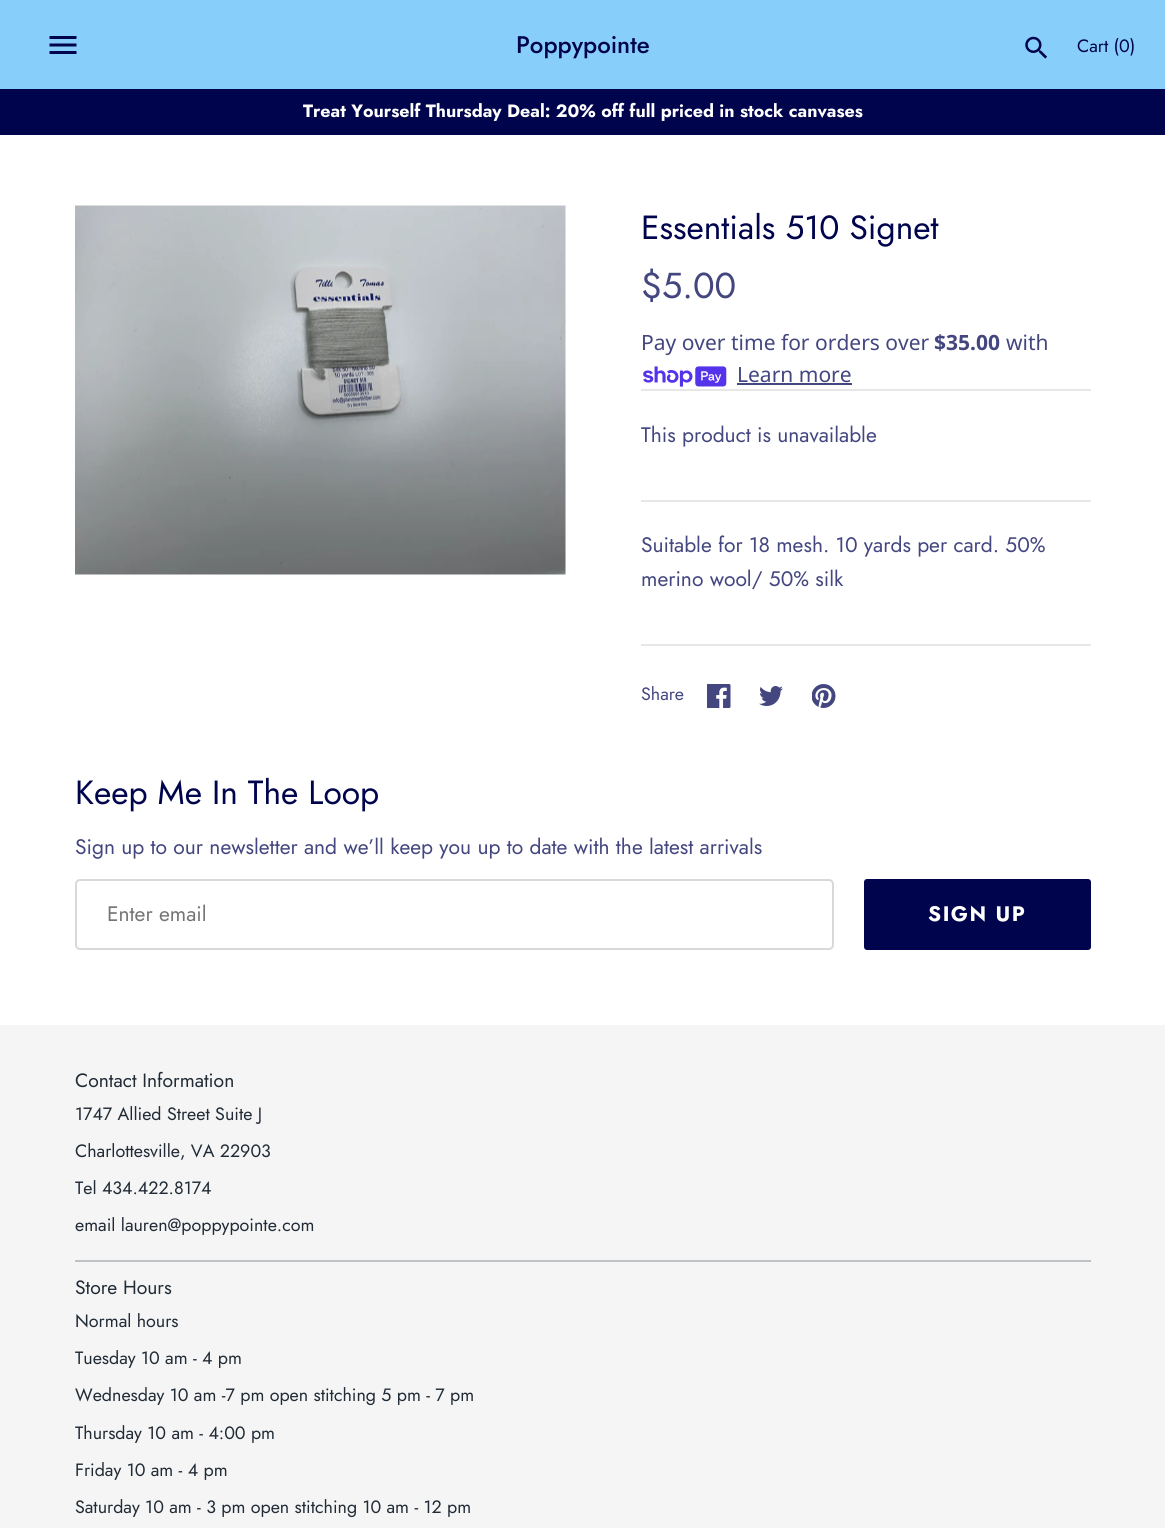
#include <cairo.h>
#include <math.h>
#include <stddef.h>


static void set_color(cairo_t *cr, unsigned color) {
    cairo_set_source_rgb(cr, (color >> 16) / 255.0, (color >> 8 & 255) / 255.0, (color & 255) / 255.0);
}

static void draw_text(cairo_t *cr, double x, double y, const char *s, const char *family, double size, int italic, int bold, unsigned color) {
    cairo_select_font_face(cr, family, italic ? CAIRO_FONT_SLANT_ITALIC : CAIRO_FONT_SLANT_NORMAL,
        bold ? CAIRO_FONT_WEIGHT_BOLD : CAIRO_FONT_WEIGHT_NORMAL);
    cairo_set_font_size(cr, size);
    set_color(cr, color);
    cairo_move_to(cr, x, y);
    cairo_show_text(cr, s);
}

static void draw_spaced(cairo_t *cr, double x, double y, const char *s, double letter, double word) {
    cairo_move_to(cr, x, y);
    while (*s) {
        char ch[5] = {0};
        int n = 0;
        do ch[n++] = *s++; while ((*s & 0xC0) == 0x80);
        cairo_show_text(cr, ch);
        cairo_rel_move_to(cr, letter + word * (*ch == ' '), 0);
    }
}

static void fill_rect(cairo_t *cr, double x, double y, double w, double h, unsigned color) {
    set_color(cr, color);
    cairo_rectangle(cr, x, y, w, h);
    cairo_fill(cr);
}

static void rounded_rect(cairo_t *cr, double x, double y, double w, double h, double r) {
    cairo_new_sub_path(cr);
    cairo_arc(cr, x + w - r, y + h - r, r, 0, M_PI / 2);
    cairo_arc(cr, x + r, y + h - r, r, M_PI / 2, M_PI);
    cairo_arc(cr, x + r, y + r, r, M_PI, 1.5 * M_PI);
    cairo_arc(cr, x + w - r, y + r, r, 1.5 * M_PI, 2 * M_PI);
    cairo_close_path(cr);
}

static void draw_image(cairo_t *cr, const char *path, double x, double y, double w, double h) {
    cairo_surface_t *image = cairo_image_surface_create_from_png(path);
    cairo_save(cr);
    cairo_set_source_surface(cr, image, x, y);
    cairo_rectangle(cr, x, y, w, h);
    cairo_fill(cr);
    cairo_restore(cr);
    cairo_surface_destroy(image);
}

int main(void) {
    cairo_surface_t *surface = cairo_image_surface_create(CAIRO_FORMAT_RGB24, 1165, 1528);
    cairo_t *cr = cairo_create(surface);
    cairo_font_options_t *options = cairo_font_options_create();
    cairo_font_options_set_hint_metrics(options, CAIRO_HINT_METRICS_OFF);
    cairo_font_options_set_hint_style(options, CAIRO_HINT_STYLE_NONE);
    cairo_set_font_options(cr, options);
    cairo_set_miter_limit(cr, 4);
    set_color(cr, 0xFFFFFF);
    cairo_paint(cr);
    fill_rect(cr, 0, 0, 1165, 89, 0x88CEFA);
    draw_image(cr, "assets/img1.png", 49, 36, 28, 18);
    draw_text(cr, 516, 53, "Poppypointe", "Jost Medium", 24, 0, 0, 0x00044C);
    draw_image(cr, "assets/img2.png", 1025, 36, 22, 23);
    draw_text(cr, 1077, 52, "Cart (0)", "Jost", 17.85, 0, 0, 0x00044C);
    fill_rect(cr, 0, 89, 1165, 46, 0x00044C);
    draw_text(cr, 303, 117, "Treat Yourself Thursday Deal: 20% off full priced in stock canvases", "Jost", 17.85, 0, 1, 0xFFFFFF);
    draw_image(cr, "assets/img3.png", 75, 205, 491, 370);
    draw_text(cr, 641, 239, "Essentials 510 Signet", "Jost", 33.5, 0, 0, 0x00044C);
    draw_text(cr, 641, 298, "$5.00", "Jost", 36, 0, 0, 0x43467F);
    draw_text(cr, 641, 350, "Pay over time for orders over", "Noto Sans", 21, 0, 0, 0x43467F);
    draw_text(cr, 934, 350, "$35.00", "Noto Sans", 21, 0, 1, 0x43467F);
    draw_text(cr, 1006, 350, "with", "Noto Sans", 21, 0, 0, 0x43467F);
    draw_image(cr, "assets/img4.png", 643, 366, 84, 21);
    draw_text(cr, 737, 382, "Learn more", "Noto Sans", 21, 0, 0, 0x43467F);
    fill_rect(cr, 737, 383, 115, 2, 0x43467F);
    fill_rect(cr, 641, 389, 450, 2, 0xE7E7E7);
    draw_text(cr, 641, 442, "This product is unavailable", "Jost", 21, 0, 0, 0x43467F);
    fill_rect(cr, 641, 500, 450, 2, 0xE7E7E7);
    draw_text(cr, 641, 552, "Suitable for 18 mesh. 10 yards per card. 50%", "Jost", 21, 0, 0, 0x43467F);
    draw_text(cr, 641, 586, "merino wool/ 50% silk", "Jost", 21, 0, 0, 0x43467F);
    fill_rect(cr, 641, 644, 450, 2, 0xE7E7E7);
    draw_text(cr, 641, 700, "Share", "Jost", 17.85, 0, 0, 0x43467F);
    draw_image(cr, "assets/img5.png", 707, 684, 24, 24);
    draw_image(cr, "assets/img6.png", 759, 686, 24, 20);
    draw_image(cr, "assets/img7.png", 812, 684, 24, 24);
    draw_text(cr, 75, 804, "Keep Me In The Loop", "Jost", 33.5, 0, 0, 0x00044C);
    draw_text(cr, 75, 854, "Sign up to our newsletter and we’ll keep you up to date with the latest arrivals", "Jost", 21, 0, 0, 0x43467F);
    rounded_rect(cr, 76, 880, 757, 69, 4);
    set_color(cr, 0xD9D9D9);
    cairo_stroke(cr);
    draw_text(cr, 107, 921, "Enter email", "Jost", 21, 0, 0, 0x757575);
    set_color(cr, 0x00044C);
    rounded_rect(cr, 865, 880, 225, 69, 2);
    cairo_fill_preserve(cr);
    cairo_stroke(cr);
    cairo_select_font_face(cr, "Jost", CAIRO_FONT_SLANT_NORMAL, CAIRO_FONT_WEIGHT_BOLD);
    set_color(cr, 0xFFFFFF);
    draw_spaced(cr, 928, 921, "SIGN UP", 1.5, 0);
    fill_rect(cr, 0, 1025, 1165, 503, 0xF5F5F5);
    fill_rect(cr, 75, 1260, 1016, 2, 0xC0C3C5);
    draw_text(cr, 75, 1087, "Contact Information", "Jost", 19.25, 0, 0, 0x212B36);
    draw_text(cr, 75, 1120, "1747 Allied Street Suite J", "Jost", 17.85, 0, 0, 0x212B36);
    draw_text(cr, 75, 1157, "Charlottesville, VA 22903", "Jost", 17.85, 0, 0, 0x212B36);
    draw_text(cr, 75, 1194, "Tel 434.422.8174", "Jost", 17.85, 0, 0, 0x212B36);
    draw_text(cr, 75, 1231, "email lauren@poppypointe.com", "Jost", 17.85, 0, 0, 0x212B36);
    draw_text(cr, 75, 1294, "Store Hours", "Jost", 19.25, 0, 0, 0x212B36);
    draw_text(cr, 75, 1327, "Normal hours", "Jost", 17.85, 0, 0, 0x212B36);
    draw_text(cr, 75, 1364, "Tuesday 10 am - 4 pm", "Jost", 17.85, 0, 0, 0x212B36);
    draw_text(cr, 75, 1401, "Wednesday 10 am -7 pm open stitching 5 pm - 7 pm", "Jost", 17.85, 0, 0, 0x212B36);
    draw_text(cr, 75, 1439, "Thursday 10 am - 4:00 pm", "Jost", 17.85, 0, 0, 0x212B36);
    draw_text(cr, 75, 1476, "Friday 10 am - 4 pm", "Jost", 17.85, 0, 0, 0x212B36);
    draw_text(cr, 75, 1513, "Saturday 10 am - 3 pm open stitching 10 am - 12 pm", "Jost", 17.85, 0, 0, 0x212B36);
    cairo_surface_write_to_png(surface, "output.png");
    cairo_font_options_destroy(options);
    cairo_destroy(cr);
    cairo_surface_destroy(surface);
    return 0;
}
